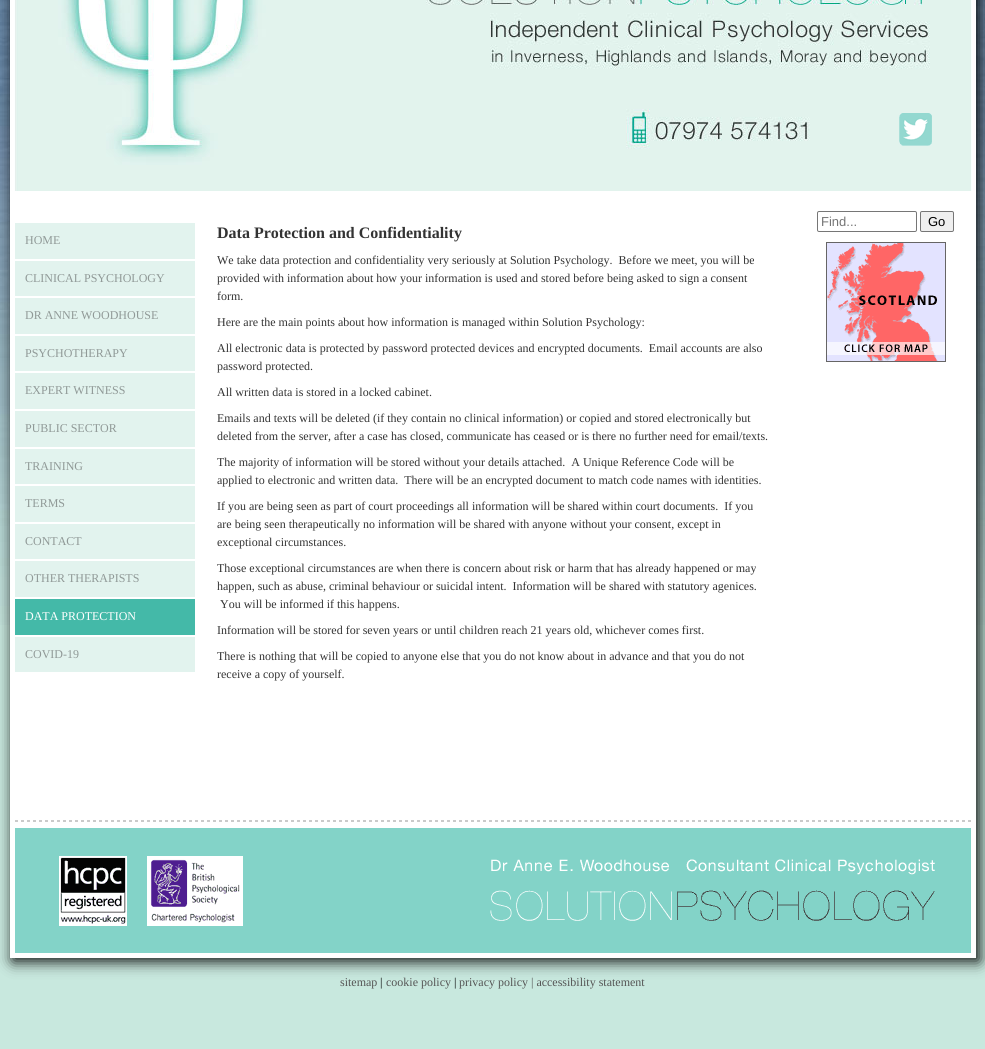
#include <cairo.h>
#include <math.h>
#include <stddef.h>


static void set_color(cairo_t *cr, unsigned color) {
    cairo_set_source_rgb(cr, (color >> 16) / 255.0, (color >> 8 & 255) / 255.0, (color & 255) / 255.0);
}

static void draw_text(cairo_t *cr, double x, double y, const char *s, const char *family, double size, int italic, int bold, unsigned color) {
    cairo_select_font_face(cr, family, italic ? CAIRO_FONT_SLANT_ITALIC : CAIRO_FONT_SLANT_NORMAL,
        bold ? CAIRO_FONT_WEIGHT_BOLD : CAIRO_FONT_WEIGHT_NORMAL);
    cairo_set_font_size(cr, size);
    set_color(cr, color);
    cairo_move_to(cr, x, y);
    cairo_show_text(cr, s);
}

static void fill_rect(cairo_t *cr, double x, double y, double w, double h, unsigned color) {
    set_color(cr, color);
    cairo_rectangle(cr, x, y, w, h);
    cairo_fill(cr);
}

static void rounded_rect(cairo_t *cr, double x, double y, double w, double h, double r) {
    cairo_new_sub_path(cr);
    cairo_arc(cr, x + w - r, y + h - r, r, 0, M_PI / 2);
    cairo_arc(cr, x + r, y + h - r, r, M_PI / 2, M_PI);
    cairo_arc(cr, x + r, y + r, r, M_PI, 1.5 * M_PI);
    cairo_arc(cr, x + w - r, y + r, r, 1.5 * M_PI, 2 * M_PI);
    cairo_close_path(cr);
}

static void draw_shadow(cairo_t *cr, double x, double y, double w, double h, double r, double blur, double alpha) {
    cairo_push_group_with_content(cr, CAIRO_CONTENT_ALPHA);
    cairo_set_operator(cr, CAIRO_OPERATOR_SOURCE);
    for (int i = 15; i >= -15 && fmin(w, h) + blur * i / 3 > 0; i -= 2) {
        double e = blur * i / 6;
        cairo_set_source_rgba(cr, 0, 0, 0, alpha * erfc((i - 1) / 8.5) / 2);
        rounded_rect(cr, x - e, y - e, w + 2 * e, h + 2 * e, fmax(0, fmin(r + e + blur * .6, fmin(w, h) / 2 + e)));
        cairo_fill(cr);
    }
    cairo_pattern_t *soft = cairo_pop_group(cr);
    cairo_mask(cr, soft);
    cairo_pattern_destroy(soft);
}

static void draw_image(cairo_t *cr, const char *path, double x, double y, double w, double h) {
    cairo_surface_t *image = cairo_image_surface_create_from_png(path);
    cairo_save(cr);
    cairo_set_source_surface(cr, image, x, y);
    cairo_rectangle(cr, x, y, w, h);
    cairo_fill(cr);
    cairo_restore(cr);
    cairo_surface_destroy(image);
}

int main(void) {
    cairo_surface_t *surface = cairo_image_surface_create(CAIRO_FORMAT_RGB24, 985, 1049);
    cairo_t *cr = cairo_create(surface);
    cairo_font_options_t *options = cairo_font_options_create();
    cairo_font_options_set_hint_metrics(options, CAIRO_HINT_METRICS_OFF);
    cairo_font_options_set_hint_style(options, CAIRO_HINT_STYLE_NONE);
    cairo_set_font_options(cr, options);
    cairo_set_miter_limit(cr, 4);
    set_color(cr, 0xC8E8DE);
    cairo_paint(cr);
    draw_image(cr, "assets/img1.png", 0, 0, 985, 625);
    set_color(cr, 0x000000);
    draw_shadow(cr, 13, -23, 966, 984, 0, 7.5, 1);
    fill_rect(cr, 10, 191, 966, 767, 0xFFFFFF);
    draw_image(cr, "assets/img2.png", 10, 0, 966, 191);
    draw_image(cr, "assets/img3.png", 899, 113, 33, 33);
    rounded_rect(cr, 817.5, 211.5, 99, 20, 1.5);
    set_color(cr, 0x767676);
    cairo_set_line_width(cr, 1);
    cairo_stroke(cr);
    draw_text(cr, 821, 226, "Find...", "Liberation Sans", 13, 0, 0, 0x757575);
    set_color(cr, 0xEFEFEF);
    rounded_rect(cr, 920.5, 211.5, 33, 20, 1.5);
    cairo_fill_preserve(cr);
    set_color(cr, 0x767676);
    cairo_stroke(cr);
    draw_text(cr, 928, 226, "Go", "Liberation Sans", 13, 0, 0, 0x000000);
    draw_image(cr, "assets/img4.png", 826, 242, 120, 120);
    fill_rect(cr, 15, 223, 180, 36, 0xE2F3EE);
    draw_text(cr, 25, 244, "HOME", "Liberation Serif", 12, 0, 0, 0x909997);
    fill_rect(cr, 15, 261, 180, 35, 0xE2F3EE);
    draw_text(cr, 25, 282, "CLINICAL PSYCHOLOGY", "Liberation Serif", 12, 0, 0, 0x909997);
    fill_rect(cr, 15, 298, 180, 36, 0xE2F3EE);
    draw_text(cr, 25, 319, "DR ANNE WOODHOUSE", "Liberation Serif", 12, 0, 0, 0x909997);
    fill_rect(cr, 15, 336, 180, 35, 0xE2F3EE);
    draw_text(cr, 25, 357, "PSYCHOTHERAPY", "Liberation Serif", 12, 0, 0, 0x909997);
    fill_rect(cr, 15, 373, 180, 36, 0xE2F3EE);
    draw_text(cr, 25, 394, "EXPERT WITNESS", "Liberation Serif", 12, 0, 0, 0x909997);
    fill_rect(cr, 15, 411, 180, 36, 0xE2F3EE);
    draw_text(cr, 25, 432, "PUBLIC SECTOR", "Liberation Serif", 12, 0, 0, 0x909997);
    fill_rect(cr, 15, 449, 180, 35, 0xE2F3EE);
    draw_text(cr, 25, 470, "TRAINING", "Liberation Serif", 12, 0, 0, 0x909997);
    fill_rect(cr, 15, 486, 180, 36, 0xE2F3EE);
    draw_text(cr, 25, 507, "TERMS", "Liberation Serif", 12, 0, 0, 0x909997);
    fill_rect(cr, 15, 524, 180, 35, 0xE2F3EE);
    draw_text(cr, 25, 545, "CONTACT", "Liberation Serif", 12, 0, 0, 0x909997);
    fill_rect(cr, 15, 561, 180, 36, 0xE2F3EE);
    draw_text(cr, 25, 582, "OTHER THERAPISTS", "Liberation Serif", 12, 0, 0, 0x909997);
    fill_rect(cr, 15, 599, 180, 36, 0x44B9A8);
    draw_text(cr, 25, 620, "DATA PROTECTION", "Liberation Serif", 12, 0, 0, 0xFFFFFF);
    fill_rect(cr, 15, 637, 180, 35, 0xE2F3EE);
    draw_text(cr, 25, 658, "COVID-19", "Liberation Serif", 12, 0, 0, 0x909997);
    draw_text(cr, 217, 238, "Data Protection and Confidentiality", "Liberation Serif", 16, 0, 1, 0x333333);
    draw_text(cr, 217, 264, "We take data protection and confidentiality very seriously at Solution Psychology.  Before we meet, you will be", "Liberation Serif", 12, 0, 0, 0x333333);
    draw_text(cr, 217, 282, "provided with information about how your information is used and stored before being asked to sign a consent", "Liberation Serif", 12, 0, 0, 0x333333);
    draw_text(cr, 217, 300, "form.", "Liberation Serif", 12, 0, 0, 0x333333);
    draw_text(cr, 217, 326, "Here are the main points about how information is managed within Solution Psychology:", "Liberation Serif", 12, 0, 0, 0x333333);
    draw_text(cr, 217, 352, "All electronic data is protected by password protected devices and encrypted documents.  Email accounts are also", "Liberation Serif", 12, 0, 0, 0x333333);
    draw_text(cr, 217, 370, "password protected.", "Liberation Serif", 12, 0, 0, 0x333333);
    draw_text(cr, 217, 396, "All written data is stored in a locked cabinet.", "Liberation Serif", 12, 0, 0, 0x333333);
    draw_text(cr, 217, 422, "Emails and texts will be deleted (if they contain no clinical information) or copied and stored electronically but", "Liberation Serif", 12, 0, 0, 0x333333);
    draw_text(cr, 217, 440, "deleted from the server, after a case has closed, communicate has ceased or is there no further need for email/texts.", "Liberation Serif", 12, 0, 0, 0x333333);
    draw_text(cr, 217, 466, "The majority of information will be stored without your details attached.  A Unique Reference Code will be", "Liberation Serif", 12, 0, 0, 0x333333);
    draw_text(cr, 217, 484, "applied to electronic and written data.  There will be an encrypted document to match code names with identities.", "Liberation Serif", 12, 0, 0, 0x333333);
    draw_text(cr, 217, 510, "If you are being seen as part of court proceedings all information will be shared within court documents.  If you", "Liberation Serif", 12, 0, 0, 0x333333);
    draw_text(cr, 217, 528, "are being seen therapeutically no information will be shared with anyone without your consent, except in", "Liberation Serif", 12, 0, 0, 0x333333);
    draw_text(cr, 217, 546, "exceptional circumstances.", "Liberation Serif", 12, 0, 0, 0x333333);
    draw_text(cr, 217, 572, "Those exceptional circumstances are when there is concern about risk or harm that has already happened or may", "Liberation Serif", 12, 0, 0, 0x333333);
    draw_text(cr, 217, 590, "happen, such as abuse, criminal behaviour or suicidal intent.  Information will be shared with statutory agenices.", "Liberation Serif", 12, 0, 0, 0x333333);
    draw_text(cr, 220, 608, "You will be informed if this happens.", "Liberation Serif", 12, 0, 0, 0x333333);
    draw_text(cr, 217, 634, "Information will be stored for seven years or until children reach 21 years old, whichever comes first.", "Liberation Serif", 12, 0, 0, 0x333333);
    draw_text(cr, 217, 660, "There is nothing that will be copied to anyone else that you do not know about in advance and that you do not", "Liberation Serif", 12, 0, 0, 0x333333);
    draw_text(cr, 217, 678, "receive a copy of yourself.", "Liberation Serif", 12, 0, 0, 0x333333);
    draw_image(cr, "assets/img5.png", 15, 820, 956, 133);
    draw_text(cr, 340, 986, "sitemap", "Liberation Serif", 12, 0, 0, 0x555555);
    draw_text(cr, 380, 986, "|", "Liberation Serif", 12, 0, 0, 0x000000);
    draw_text(cr, 386, 986, "cookie policy", "Liberation Serif", 12, 0, 0, 0x555555);
    draw_text(cr, 454, 986, "|", "Liberation Serif", 12, 0, 0, 0x000000);
    draw_text(cr, 459, 986, "privacy policy | accessibility statement", "Liberation Serif", 12, 0, 0, 0x555555);
    cairo_surface_write_to_png(surface, "output.png");
    cairo_font_options_destroy(options);
    cairo_destroy(cr);
    cairo_surface_destroy(surface);
    return 0;
}
